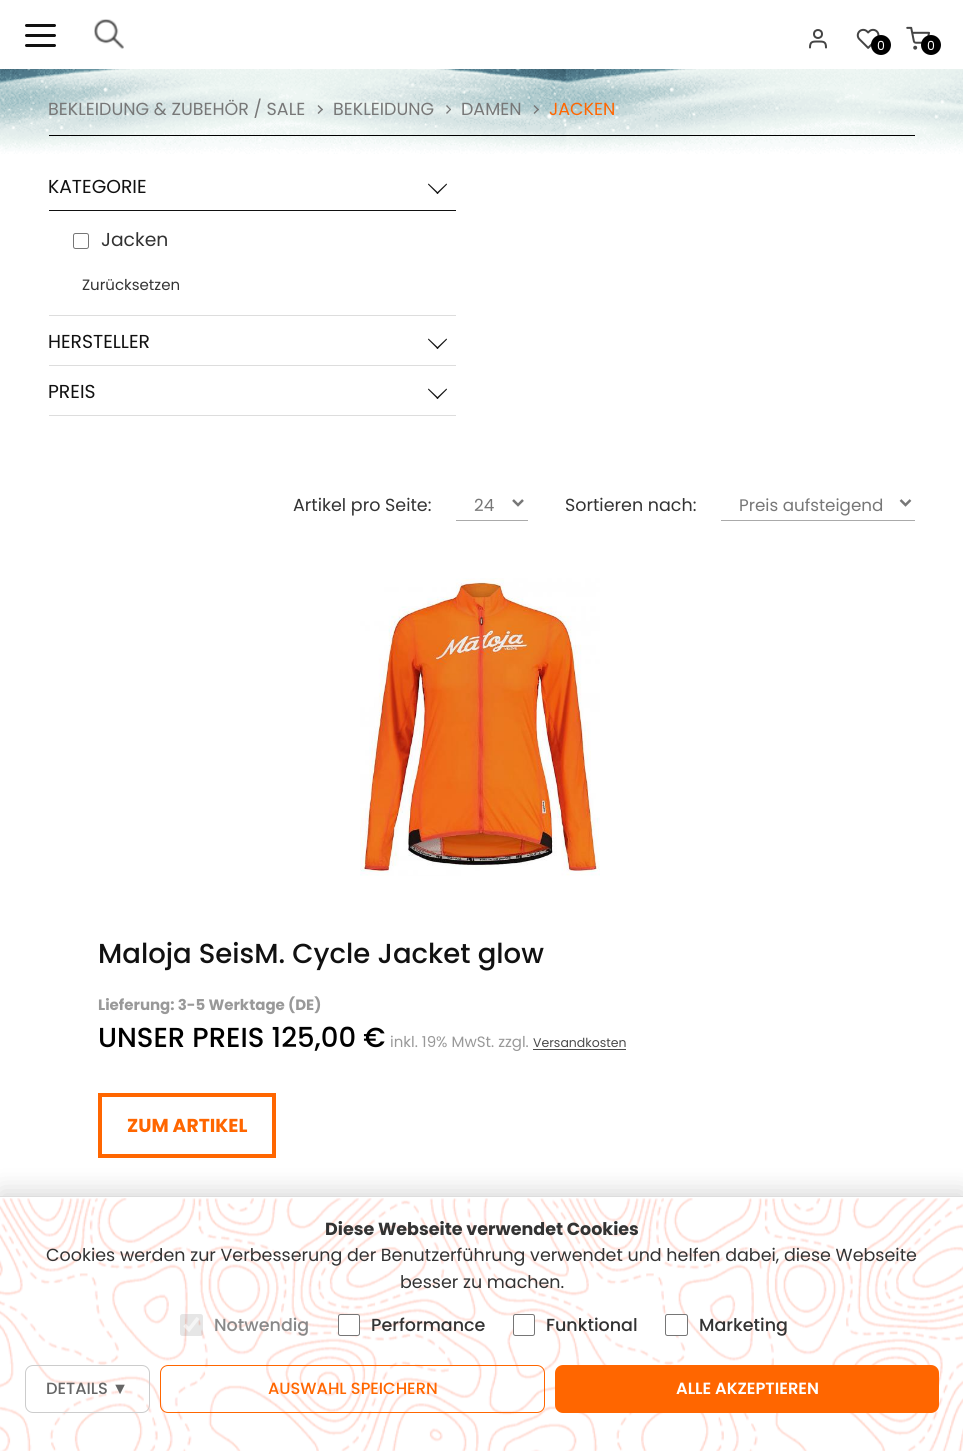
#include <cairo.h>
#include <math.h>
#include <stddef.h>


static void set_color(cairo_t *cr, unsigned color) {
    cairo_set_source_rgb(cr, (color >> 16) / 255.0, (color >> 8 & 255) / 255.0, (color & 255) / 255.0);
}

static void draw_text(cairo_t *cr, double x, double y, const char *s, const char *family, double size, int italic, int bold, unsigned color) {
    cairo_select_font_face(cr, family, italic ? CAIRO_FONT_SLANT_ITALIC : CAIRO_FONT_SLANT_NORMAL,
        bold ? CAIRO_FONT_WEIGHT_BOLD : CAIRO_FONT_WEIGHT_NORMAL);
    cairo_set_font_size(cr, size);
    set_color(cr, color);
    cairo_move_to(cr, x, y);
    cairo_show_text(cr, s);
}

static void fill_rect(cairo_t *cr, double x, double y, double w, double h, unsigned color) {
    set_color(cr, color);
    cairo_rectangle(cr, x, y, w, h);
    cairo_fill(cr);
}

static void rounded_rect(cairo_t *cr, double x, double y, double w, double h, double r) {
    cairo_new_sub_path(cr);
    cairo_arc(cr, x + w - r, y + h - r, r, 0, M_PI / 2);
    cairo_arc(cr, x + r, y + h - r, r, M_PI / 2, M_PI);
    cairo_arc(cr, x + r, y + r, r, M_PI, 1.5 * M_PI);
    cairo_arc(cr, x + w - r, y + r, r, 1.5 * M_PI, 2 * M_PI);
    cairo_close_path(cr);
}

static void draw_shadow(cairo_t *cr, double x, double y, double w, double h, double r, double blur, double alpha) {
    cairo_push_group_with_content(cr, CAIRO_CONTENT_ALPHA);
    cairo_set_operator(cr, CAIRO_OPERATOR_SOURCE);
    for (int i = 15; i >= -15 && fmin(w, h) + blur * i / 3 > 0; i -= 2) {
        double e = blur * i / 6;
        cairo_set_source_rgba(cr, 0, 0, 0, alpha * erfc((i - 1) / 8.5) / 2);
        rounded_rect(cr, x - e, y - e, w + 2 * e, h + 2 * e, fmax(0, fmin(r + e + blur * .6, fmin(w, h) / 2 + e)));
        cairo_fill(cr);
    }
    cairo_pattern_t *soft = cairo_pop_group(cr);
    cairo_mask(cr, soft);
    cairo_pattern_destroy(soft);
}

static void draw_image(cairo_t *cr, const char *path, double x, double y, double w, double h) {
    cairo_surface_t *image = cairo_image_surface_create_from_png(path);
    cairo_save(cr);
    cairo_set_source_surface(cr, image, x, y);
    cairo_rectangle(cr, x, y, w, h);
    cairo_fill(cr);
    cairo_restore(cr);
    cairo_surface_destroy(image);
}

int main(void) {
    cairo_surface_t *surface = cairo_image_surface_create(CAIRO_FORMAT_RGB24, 963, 1451);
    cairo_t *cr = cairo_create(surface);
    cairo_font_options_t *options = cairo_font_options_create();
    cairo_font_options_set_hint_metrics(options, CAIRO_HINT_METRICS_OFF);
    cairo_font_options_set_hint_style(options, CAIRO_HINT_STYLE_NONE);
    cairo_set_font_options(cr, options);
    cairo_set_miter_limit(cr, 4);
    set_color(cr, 0xFFFFFF);
    cairo_paint(cr);
    draw_image(cr, "assets/img1.png", 0, 69, 963, 85);
    set_color(cr, 0x111111);
    rounded_rect(cr, 25, 24, 31, 3, 1.5);
    cairo_fill(cr);
    rounded_rect(cr, 25, 34, 31, 3, 1.5);
    cairo_fill(cr);
    rounded_rect(cr, 25, 44, 31, 3, 1.5);
    cairo_fill(cr);
    draw_image(cr, "assets/img2.png", 94, 19, 30, 30);
    cairo_arc(cr, 818, 34, 4, 0, 2 * M_PI);
    set_color(cr, 0x444444);
    cairo_stroke(cr);
    cairo_new_path(cr);
    cairo_move_to(cr, 826, 47.5);
    cairo_curve_to(cr, 826, 41.5, 823.5, 41.5, 818, 41.5);
    cairo_curve_to(cr, 812.5, 41.5, 810, 41.5, 810, 47.5);
    cairo_set_line_cap(cr, CAIRO_LINE_CAP_ROUND);
    cairo_set_line_join(cr, CAIRO_LINE_JOIN_ROUND);
    cairo_stroke(cr);
    draw_image(cr, "assets/img3.png", 856, 28, 24, 21);
    set_color(cr, 0x000000);
    cairo_arc(cr, 881, 45, 10, 0, 2 * M_PI);
    cairo_fill(cr);
    draw_text(cr, 877, 50, "0", "Poppins", 12.5, 0, 0, 0xFFFFFF);
    draw_image(cr, "assets/img4.png", 906, 26, 24, 24);
    set_color(cr, 0x000000);
    cairo_arc(cr, 931, 45, 10, 0, 2 * M_PI);
    cairo_fill(cr);
    draw_text(cr, 927, 50, "0", "Poppins", 12.5, 0, 0, 0xFFFFFF);
    fill_rect(cr, 49, 135, 866, 1, 0x000000);
    draw_text(cr, 48, 115, "BEKLEIDUNG & ZUBEHÖR / SALE", "Poppins", 17.5, 0, 0, 0x777777);
    cairo_new_path(cr);
    cairo_move_to(cr, 317.5, 106);
    cairo_line_to(cr, 318.5, 105);
    cairo_line_to(cr, 323, 109.5);
    cairo_line_to(cr, 322, 110.5);
    cairo_close_path(cr);
    cairo_fill(cr);
    cairo_new_path(cr);
    cairo_move_to(cr, 317.5, 113);
    cairo_line_to(cr, 322, 108.5);
    cairo_line_to(cr, 323, 109.5);
    cairo_line_to(cr, 318.5, 114);
    cairo_close_path(cr);
    cairo_fill(cr);
    draw_text(cr, 333, 115, "BEKLEIDUNG", "Poppins", 17.5, 0, 0, 0x777777);
    cairo_new_path(cr);
    cairo_move_to(cr, 446, 106);
    cairo_line_to(cr, 447, 105);
    cairo_line_to(cr, 451, 109.5);
    cairo_line_to(cr, 450.5, 110.5);
    cairo_close_path(cr);
    cairo_fill(cr);
    cairo_new_path(cr);
    cairo_move_to(cr, 446, 113);
    cairo_line_to(cr, 450.5, 108.5);
    cairo_line_to(cr, 451, 109.5);
    cairo_line_to(cr, 447, 114);
    cairo_close_path(cr);
    cairo_fill(cr);
    draw_text(cr, 461, 115, "DAMEN", "Poppins", 17.5, 0, 0, 0x777777);
    cairo_new_path(cr);
    cairo_move_to(cr, 533.5, 106);
    cairo_line_to(cr, 534.5, 105);
    cairo_line_to(cr, 539, 109.5);
    cairo_line_to(cr, 538, 110.5);
    cairo_close_path(cr);
    cairo_fill(cr);
    cairo_new_path(cr);
    cairo_move_to(cr, 533.5, 113);
    cairo_line_to(cr, 538, 108.5);
    cairo_line_to(cr, 539, 109.5);
    cairo_line_to(cr, 534.5, 114);
    cairo_close_path(cr);
    cairo_fill(cr);
    draw_text(cr, 549, 115, "JACKEN", "Poppins", 17.5, 0, 0, 0xFF6600);
    draw_text(cr, 48, 193, "KATEGORIE", "Poppins", 18.75, 0, 0, 0x111111);
    cairo_new_path(cr);
    cairo_move_to(cr, 446.5, 183.5);
    cairo_line_to(cr, 447, 184.5);
    cairo_line_to(cr, 437.5, 194);
    cairo_line_to(cr, 436.5, 193);
    cairo_close_path(cr);
    cairo_fill(cr);
    cairo_new_path(cr);
    cairo_move_to(cr, 428.5, 183.5);
    cairo_line_to(cr, 438.5, 193);
    cairo_line_to(cr, 437.5, 194);
    cairo_line_to(cr, 428, 184.5);
    cairo_close_path(cr);
    cairo_fill(cr);
    fill_rect(cr, 49, 210, 407, 1, 0x111111);
    fill_rect(cr, 49, 315, 407, 1, 0xDDDDDD);
    rounded_rect(cr, 73.5, 233.5, 15, 15, 2);
    set_color(cr, 0x767676);
    cairo_set_line_width(cr, 1);
    cairo_set_line_cap(cr, CAIRO_LINE_CAP_BUTT);
    cairo_set_line_join(cr, CAIRO_LINE_JOIN_MITER);
    cairo_stroke(cr);
    draw_text(cr, 101, 246, "Jacken", "Poppins", 18.75, 0, 0, 0x333333);
    draw_text(cr, 82, 290, "Zurücksetzen", "Poppins", 15, 0, 0, 0x333333);
    fill_rect(cr, 49, 365, 407, 1, 0xDDDDDD);
    draw_text(cr, 48, 348, "HERSTELLER", "Poppins", 18.75, 0, 0, 0x111111);
    cairo_new_path(cr);
    cairo_move_to(cr, 446.5, 338.5);
    cairo_line_to(cr, 447, 339.5);
    cairo_line_to(cr, 437.5, 349);
    cairo_line_to(cr, 436.5, 348);
    cairo_close_path(cr);
    cairo_fill(cr);
    cairo_new_path(cr);
    cairo_move_to(cr, 428.5, 338.5);
    cairo_line_to(cr, 438.5, 348);
    cairo_line_to(cr, 437.5, 349);
    cairo_line_to(cr, 428, 339.5);
    cairo_close_path(cr);
    cairo_fill(cr);
    fill_rect(cr, 49, 415, 407, 1, 0xDDDDDD);
    draw_text(cr, 48, 398, "PREIS", "Poppins", 18.75, 0, 0, 0x111111);
    cairo_new_path(cr);
    cairo_move_to(cr, 446.5, 388.5);
    cairo_line_to(cr, 447, 389.5);
    cairo_line_to(cr, 437.5, 399);
    cairo_line_to(cr, 436.5, 398);
    cairo_close_path(cr);
    cairo_fill(cr);
    cairo_new_path(cr);
    cairo_move_to(cr, 428.5, 388.5);
    cairo_line_to(cr, 438.5, 398);
    cairo_line_to(cr, 437.5, 399);
    cairo_line_to(cr, 428, 389.5);
    cairo_close_path(cr);
    cairo_fill(cr);
    draw_text(cr, 293, 511, "Artikel pro Seite:", "Poppins", 17.5, 0, 0, 0x333333);
    fill_rect(cr, 456, 520, 72, 1, 0xAAAAAA);
    cairo_new_path(cr);
    cairo_move_to(cr, 513, 500);
    cairo_line_to(cr, 518, 505);
    cairo_line_to(cr, 523, 500);
    set_color(cr, 0x777777);
    cairo_set_line_width(cr, 2.5);
    cairo_stroke(cr);
    draw_text(cr, 474, 511, "24", "Poppins", 16.75, 0, 0, 0x777777);
    draw_text(cr, 565, 511, "Sortieren nach:", "Poppins", 17.5, 0, 0, 0x333333);
    fill_rect(cr, 721, 520, 194, 1, 0xAAAAAA);
    cairo_new_path(cr);
    cairo_move_to(cr, 900.5, 500);
    cairo_line_to(cr, 905.5, 505);
    cairo_line_to(cr, 910.5, 500);
    set_color(cr, 0x777777);
    cairo_stroke(cr);
    draw_text(cr, 739, 511, "Preis aufsteigend", "Poppins", 16.75, 0, 0, 0x777777);
    draw_image(cr, "assets/img5.png", 360, 578, 240, 298);
    draw_text(cr, 98, 963, "Maloja SeisM. Cycle Jacket glow", "Poppins Medium", 27.5, 0, 0, 0x111111);
    draw_text(cr, 98, 1010, "Lieferung: 3-5 Werktage (DE)", "Poppins", 15, 0, 1, 0x999999);
    draw_text(cr, 98, 1047, "UNSER PREIS 125,00 €", "Poppins Medium", 27.5, 0, 0, 0x000000);
    draw_text(cr, 390, 1047, "inkl. 19% MwSt. zzgl.", "Poppins", 15, 0, 0, 0x999999);
    draw_text(cr, 533, 1047, "Versandkosten", "Poppins", 12.5, 0, 0, 0x4A4A4A);
    fill_rect(cr, 533, 1049, 93, 1, 0x4A4A4A);
    cairo_rectangle(cr, 100, 1095, 174, 61);
    set_color(cr, 0xFF6600);
    cairo_set_line_width(cr, 4);
    cairo_stroke(cr);
    draw_text(cr, 127, 1132, "ZUM ARTIKEL", "Poppins", 18.75, 0, 1, 0xFF6600);
    set_color(cr, 0x000000);
    draw_shadow(cr, 0, 1191, 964, 255, 0, 12.5, 0.15);
    fill_rect(cr, 0, 1197, 963, 254, 0xFFFFFF);
    fill_rect(cr, 0, 1196, 963, 1, 0xDDDDDD);
    draw_image(cr, "assets/img6.png", 0, 1198, 963, 253);
    draw_text(cr, 325, 1235, "Diese Webseite verwendet Cookies", "Poppins", 17.5, 0, 1, 0x333333);
    draw_text(cr, 46, 1261, "Cookies werden zur Verbesserung der Benutzerführung verwendet und helfen dabei, diese Webseite", "Poppins", 17.5, 0, 0, 0x333333);
    draw_text(cr, 400, 1288, "besser zu machen.", "Poppins", 17.5, 0, 0, 0x333333);
    cairo_set_source_rgba(cr, 0.463, 0.463, 0.463, 0.18);
    rounded_rect(cr, 180, 1314, 23, 22, 2.5);
    cairo_fill(cr);
    cairo_new_path(cr);
    cairo_move_to(cr, 184.5, 1325);
    cairo_line_to(cr, 189, 1329.5);
    cairo_line_to(cr, 198, 1318);
    cairo_set_source_rgba(cr, 1, 1, 1, 0.6);
    cairo_set_line_width(cr, 3.6);
    cairo_stroke(cr);
    draw_text(cr, 214, 1331, "Notwendig", "Poppins Medium", 17.5, 0, 0, 0x888888);
    set_color(cr, 0xFFFFFF);
    rounded_rect(cr, 338.5, 1314.5, 21, 21, 2);
    cairo_fill_preserve(cr);
    set_color(cr, 0x767676);
    cairo_set_line_width(cr, 1);
    cairo_stroke(cr);
    draw_text(cr, 371, 1331, "Performance", "Poppins Medium", 17.5, 0, 0, 0x333333);
    set_color(cr, 0xFFFFFF);
    rounded_rect(cr, 513.5, 1314.5, 21, 21, 2);
    cairo_fill_preserve(cr);
    set_color(cr, 0x767676);
    cairo_stroke(cr);
    draw_text(cr, 546, 1331, "Funktional", "Poppins Medium", 17.5, 0, 0, 0x333333);
    set_color(cr, 0xFFFFFF);
    rounded_rect(cr, 665.5, 1314.5, 22, 21, 2);
    cairo_fill_preserve(cr);
    set_color(cr, 0x767676);
    cairo_stroke(cr);
    draw_text(cr, 699, 1331, "Marketing", "Poppins Medium", 17.5, 0, 0, 0x333333);
    rounded_rect(cr, 25.5, 1365.5, 124, 47, 7.5);
    set_color(cr, 0xCCCCCC);
    cairo_stroke(cr);
    draw_text(cr, 46, 1394, "DETAILS", "Poppins Medium", 16.25, 0, 0, 0x666666);
    draw_text(cr, 112, 1394, "▼", "Liberation Serif", 16.25, 0, 0, 0x666666);
    rounded_rect(cr, 160.5, 1365.5, 384, 47, 7.5);
    set_color(cr, 0xFF6600);
    cairo_stroke(cr);
    draw_text(cr, 268, 1394, "AUSWAHL SPEICHERN", "Poppins Medium", 16.25, 0, 0, 0xFF6600);
    rounded_rect(cr, 555, 1365, 384, 48, 8);
    cairo_fill(cr);
    draw_text(cr, 676, 1394, "ALLE AKZEPTIEREN", "Poppins SemiBold", 16.25, 0, 0, 0xFFFFFF);
    cairo_surface_write_to_png(surface, "output.png");
    cairo_font_options_destroy(options);
    cairo_destroy(cr);
    cairo_surface_destroy(surface);
    return 0;
}
